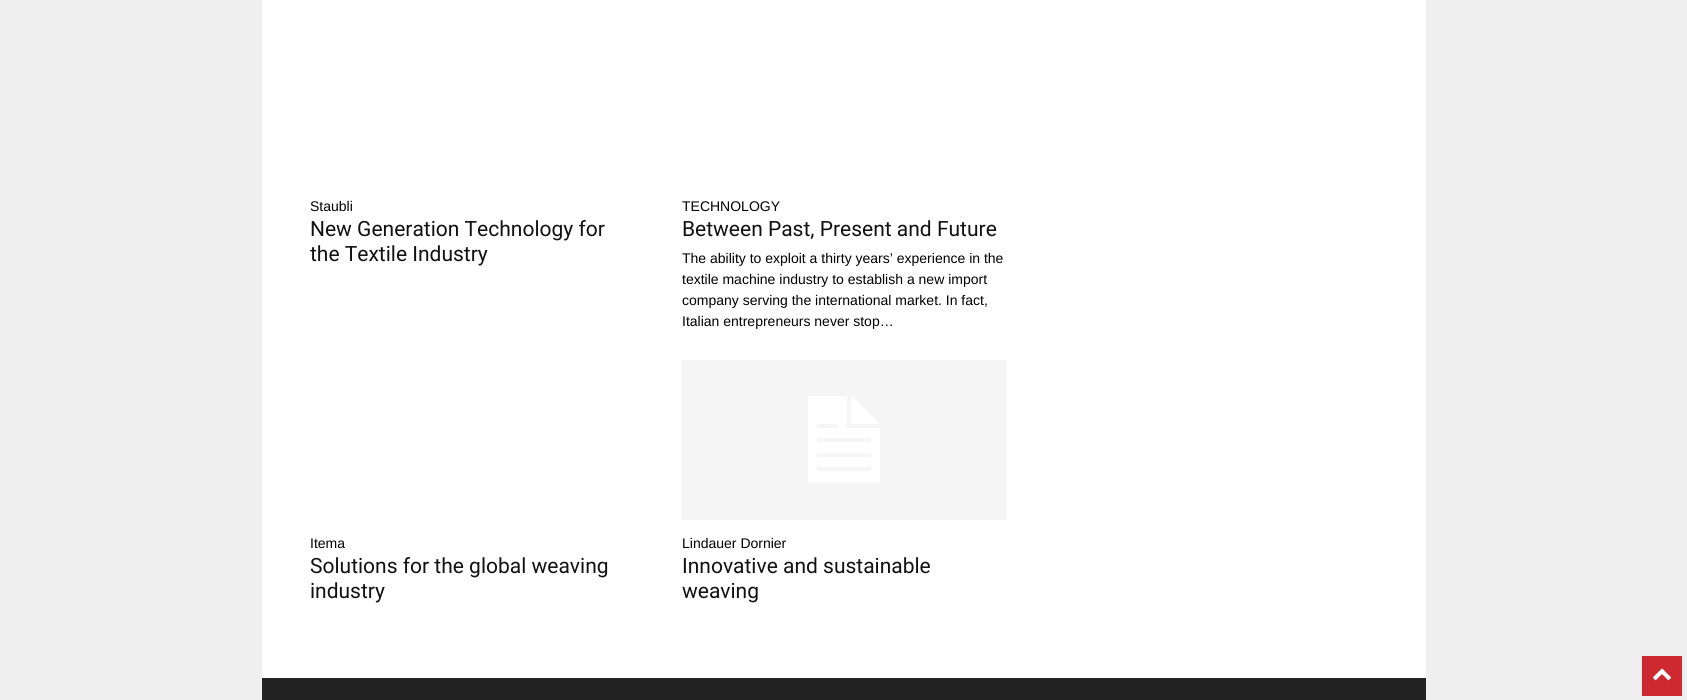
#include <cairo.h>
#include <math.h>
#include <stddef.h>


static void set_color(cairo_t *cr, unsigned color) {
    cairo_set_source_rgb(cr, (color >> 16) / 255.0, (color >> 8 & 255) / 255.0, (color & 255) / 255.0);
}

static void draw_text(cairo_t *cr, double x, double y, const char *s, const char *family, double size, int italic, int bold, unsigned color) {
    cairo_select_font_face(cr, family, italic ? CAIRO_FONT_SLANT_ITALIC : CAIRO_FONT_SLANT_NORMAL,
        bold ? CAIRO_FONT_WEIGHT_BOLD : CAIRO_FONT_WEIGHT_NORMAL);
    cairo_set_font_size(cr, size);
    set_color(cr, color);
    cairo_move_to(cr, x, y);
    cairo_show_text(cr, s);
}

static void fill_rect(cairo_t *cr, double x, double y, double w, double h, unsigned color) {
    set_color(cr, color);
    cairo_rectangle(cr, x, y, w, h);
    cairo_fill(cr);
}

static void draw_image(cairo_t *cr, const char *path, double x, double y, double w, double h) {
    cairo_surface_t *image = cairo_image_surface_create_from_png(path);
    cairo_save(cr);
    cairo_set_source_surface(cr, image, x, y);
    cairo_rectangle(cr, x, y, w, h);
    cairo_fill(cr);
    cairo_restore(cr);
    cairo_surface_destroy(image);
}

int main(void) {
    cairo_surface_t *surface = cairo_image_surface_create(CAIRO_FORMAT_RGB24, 1687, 700);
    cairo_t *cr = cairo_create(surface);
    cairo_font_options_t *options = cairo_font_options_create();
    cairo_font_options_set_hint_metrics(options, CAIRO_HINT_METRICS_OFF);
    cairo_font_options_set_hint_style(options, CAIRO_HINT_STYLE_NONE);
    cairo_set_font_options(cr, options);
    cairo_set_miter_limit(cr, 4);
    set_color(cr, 0xEFEFEF);
    cairo_paint(cr);
    fill_rect(cr, 262, 0, 1164, 678, 0xFFFFFF);
    draw_text(cr, 310, 211, "Staubli", "Liberation Sans", 14, 0, 0, 0x000000);
    draw_text(cr, 310, 236, "New Generation Technology for", "Roboto", 21, 0, 0, 0x111111);
    draw_text(cr, 310, 261, "the Textile Industry", "Roboto", 21, 0, 0, 0x111111);
    draw_text(cr, 682, 211, "TECHNOLOGY", "Liberation Sans", 14, 0, 0, 0x000000);
    draw_text(cr, 682, 236, "Between Past, Present and Future", "Roboto", 21, 0, 0, 0x111111);
    draw_text(cr, 682, 263, "The ability to exploit a thirty years’ experience in the", "Liberation Sans", 14, 0, 0, 0x000000);
    draw_text(cr, 682, 284, "textile machine industry to establish a new import", "Liberation Sans", 14, 0, 0, 0x000000);
    draw_text(cr, 682, 305, "company serving the international market. In fact,", "Liberation Sans", 14, 0, 0, 0x000000);
    draw_text(cr, 682, 326, "Italian entrepreneurs never stop…", "Liberation Sans", 14, 0, 0, 0x000000);
    draw_text(cr, 310, 548, "Itema", "Liberation Sans", 14, 0, 0, 0x000000);
    draw_text(cr, 310, 573, "Solutions for the global weaving", "Roboto", 21, 0, 0, 0x111111);
    draw_text(cr, 310, 598, "industry", "Roboto", 21, 0, 0, 0x111111);
    draw_image(cr, "assets/img1.png", 682, 360, 324, 160);
    draw_text(cr, 682, 548, "Lindauer Dornier", "Liberation Sans", 14, 0, 0, 0x000000);
    draw_text(cr, 682, 573, "Innovative and sustainable", "Roboto", 21, 0, 0, 0x111111);
    draw_text(cr, 682, 598, "weaving", "Roboto", 21, 0, 0, 0x111111);
    fill_rect(cr, 262, 678, 1164, 22, 0x222222);
    fill_rect(cr, 1642, 656, 40, 40, 0xCE2830);
    draw_image(cr, "assets/img2.png", 1653, 668, 18, 13);
    cairo_surface_write_to_png(surface, "output.png");
    cairo_font_options_destroy(options);
    cairo_destroy(cr);
    cairo_surface_destroy(surface);
    return 0;
}
